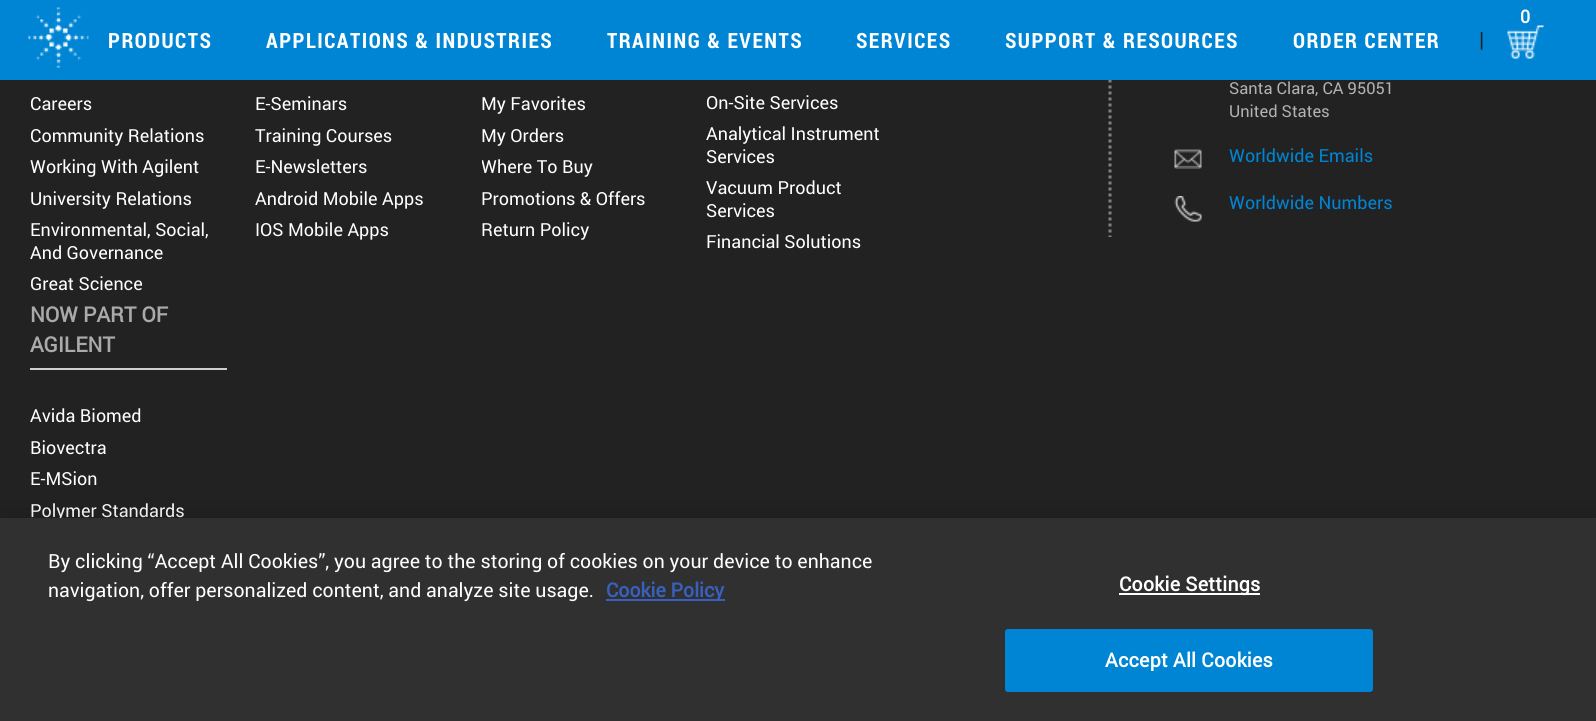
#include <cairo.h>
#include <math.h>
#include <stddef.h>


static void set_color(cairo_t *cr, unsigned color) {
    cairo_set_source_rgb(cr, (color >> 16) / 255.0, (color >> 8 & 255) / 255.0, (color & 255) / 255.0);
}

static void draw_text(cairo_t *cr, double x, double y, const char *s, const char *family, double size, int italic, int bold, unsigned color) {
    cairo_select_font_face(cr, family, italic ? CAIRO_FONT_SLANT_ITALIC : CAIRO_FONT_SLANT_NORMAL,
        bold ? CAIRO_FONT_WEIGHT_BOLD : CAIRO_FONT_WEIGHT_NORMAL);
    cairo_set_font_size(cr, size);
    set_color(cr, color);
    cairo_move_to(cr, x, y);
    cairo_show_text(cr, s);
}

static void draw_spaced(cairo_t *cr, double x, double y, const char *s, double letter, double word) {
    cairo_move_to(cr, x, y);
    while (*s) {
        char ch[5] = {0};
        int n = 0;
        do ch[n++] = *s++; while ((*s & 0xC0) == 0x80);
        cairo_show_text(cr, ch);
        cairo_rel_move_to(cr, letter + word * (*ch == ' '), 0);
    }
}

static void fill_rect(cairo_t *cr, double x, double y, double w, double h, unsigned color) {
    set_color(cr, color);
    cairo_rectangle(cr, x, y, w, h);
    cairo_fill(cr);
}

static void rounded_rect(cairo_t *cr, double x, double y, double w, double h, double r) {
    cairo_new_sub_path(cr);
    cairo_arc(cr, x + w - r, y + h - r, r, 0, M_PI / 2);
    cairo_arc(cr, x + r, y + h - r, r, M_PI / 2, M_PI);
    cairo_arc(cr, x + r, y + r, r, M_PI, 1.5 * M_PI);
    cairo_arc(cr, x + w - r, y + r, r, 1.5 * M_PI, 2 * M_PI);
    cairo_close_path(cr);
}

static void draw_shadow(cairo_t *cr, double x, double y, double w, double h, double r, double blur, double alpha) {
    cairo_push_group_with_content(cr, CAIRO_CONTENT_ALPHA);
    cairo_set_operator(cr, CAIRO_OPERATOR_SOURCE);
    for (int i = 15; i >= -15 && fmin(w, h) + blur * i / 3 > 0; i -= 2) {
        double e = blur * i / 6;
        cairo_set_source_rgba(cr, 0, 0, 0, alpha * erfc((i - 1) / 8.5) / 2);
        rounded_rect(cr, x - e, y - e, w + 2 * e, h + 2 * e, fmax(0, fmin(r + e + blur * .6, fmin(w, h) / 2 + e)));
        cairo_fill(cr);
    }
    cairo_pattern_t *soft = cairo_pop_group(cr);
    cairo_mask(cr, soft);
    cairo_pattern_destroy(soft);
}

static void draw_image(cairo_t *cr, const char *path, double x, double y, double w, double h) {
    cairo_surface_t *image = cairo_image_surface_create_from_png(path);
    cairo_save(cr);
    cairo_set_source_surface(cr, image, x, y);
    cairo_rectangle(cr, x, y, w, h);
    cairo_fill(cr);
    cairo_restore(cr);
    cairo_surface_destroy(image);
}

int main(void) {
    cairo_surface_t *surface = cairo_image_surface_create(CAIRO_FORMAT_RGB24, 1596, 721);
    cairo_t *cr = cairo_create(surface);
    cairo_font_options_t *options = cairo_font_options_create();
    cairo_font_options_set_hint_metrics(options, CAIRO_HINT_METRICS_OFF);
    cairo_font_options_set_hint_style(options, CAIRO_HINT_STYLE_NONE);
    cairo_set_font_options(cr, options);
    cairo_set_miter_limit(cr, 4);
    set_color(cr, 0x222222);
    cairo_paint(cr);
    cairo_new_path(cr);
    cairo_move_to(cr, 1110, -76.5);
    cairo_line_to(cr, 1110, 237);
    set_color(cr, 0x808080);
    cairo_set_line_width(cr, 3);
    cairo_set_dash(cr, (double[]){3, 3}, 2, 0);
    cairo_stroke(cr);
    fill_rect(cr, 0, 0, 1596, 80, 0x0085D5);
    draw_image(cr, "assets/img1.png", 28, 7, 61, 61);
    cairo_select_font_face(cr, "Roboto", CAIRO_FONT_SLANT_NORMAL, CAIRO_FONT_WEIGHT_BOLD);
    cairo_set_font_size(cr, 18);
    set_color(cr, 0xFFFFFF);
    draw_spaced(cr, 1520, 23, "0", 1.5, 0);
    draw_image(cr, "assets/img2.png", 1507, 25, 37, 34);
    cairo_select_font_face(cr, "Roboto Condensed", CAIRO_FONT_SLANT_NORMAL, CAIRO_FONT_WEIGHT_BOLD);
    cairo_set_font_size(cr, 21);
    draw_spaced(cr, 108, 48, "PRODUCTS", 1.5, 0);
    draw_spaced(cr, 266, 48, "APPLICATIONS & INDUSTRIES", 1.5, 0);
    draw_spaced(cr, 607, 48, "TRAINING & EVENTS", 1.5, 0);
    draw_spaced(cr, 856, 48, "SERVICES", 1.5, 0);
    draw_spaced(cr, 1005, 48, "SUPPORT & RESOURCES", 1.5, 0);
    draw_spaced(cr, 1293, 48, "ORDER CENTER", 1.5, 0);
    draw_text(cr, 1479, 47, "|", "Roboto", 21, 0, 0, 0x202020);
    draw_text(cr, 30, 110, "Careers", "Roboto", 18, 0, 0, 0xFFFFFF);
    draw_text(cr, 30, 142, "Community Relations", "Roboto", 18, 0, 0, 0xFFFFFF);
    draw_text(cr, 30, 173, "Working With Agilent", "Roboto", 18, 0, 0, 0xFFFFFF);
    draw_text(cr, 30, 205, "University Relations", "Roboto", 18, 0, 0, 0xFFFFFF);
    draw_text(cr, 30, 236, "Environmental, Social,", "Roboto", 18, 0, 0, 0xFFFFFF);
    draw_text(cr, 30, 259, "And Governance", "Roboto", 18, 0, 0, 0xFFFFFF);
    draw_text(cr, 30, 290, "Great Science", "Roboto", 18, 0, 0, 0xFFFFFF);
    draw_text(cr, 255, 110, "E-Seminars", "Roboto", 18, 0, 0, 0xFFFFFF);
    draw_text(cr, 255, 142, "Training Courses", "Roboto", 18, 0, 0, 0xFFFFFF);
    draw_text(cr, 255, 173, "E-Newsletters", "Roboto", 18, 0, 0, 0xFFFFFF);
    draw_text(cr, 255, 205, "Android Mobile Apps", "Roboto", 18, 0, 0, 0xFFFFFF);
    draw_text(cr, 255, 236, "IOS Mobile Apps", "Roboto", 18, 0, 0, 0xFFFFFF);
    draw_text(cr, 481, 110, "My Favorites", "Roboto", 18, 0, 0, 0xFFFFFF);
    draw_text(cr, 481, 142, "My Orders", "Roboto", 18, 0, 0, 0xFFFFFF);
    cairo_save(cr);
    cairo_rectangle(cr, 482, 152, 196, 31);
    cairo_clip(cr);
    draw_text(cr, 481, 173, "Where To Buy", "Roboto", 18, 0, 0, 0xFFFFFF);
    cairo_restore(cr);
    draw_text(cr, 481, 205, "Promotions & Offers", "Roboto", 18, 0, 0, 0xFFFFFF);
    draw_text(cr, 481, 236, "Return Policy", "Roboto", 18, 0, 0, 0xFFFFFF);
    draw_text(cr, 706, 109, "On-Site Services", "Roboto", 18, 0, 0, 0xFFFFFF);
    draw_text(cr, 706, 140, "Analytical Instrument", "Roboto", 18, 0, 0, 0xFFFFFF);
    draw_text(cr, 706, 163, "Services", "Roboto", 18, 0, 0, 0xFFFFFF);
    draw_text(cr, 706, 194, "Vacuum Product", "Roboto", 18, 0, 0, 0xFFFFFF);
    draw_text(cr, 706, 217, "Services", "Roboto", 18, 0, 0, 0xFFFFFF);
    draw_text(cr, 706, 248, "Financial Solutions", "Roboto", 18, 0, 0, 0xFFFFFF);
    draw_text(cr, 30, 322, "NOW PART OF", "Roboto", 21, 0, 1, 0xAAAAAA);
    draw_text(cr, 30, 352, "AGILENT", "Roboto", 21, 0, 1, 0xAAAAAA);
    fill_rect(cr, 30, 368, 197, 2, 0xCFCFCF);
    draw_text(cr, 30, 422, "Avida Biomed", "Roboto", 18, 0, 0, 0xFFFFFF);
    draw_text(cr, 30, 454, "Biovectra", "Roboto", 18, 0, 0, 0xFFFFFF);
    draw_text(cr, 30, 485, "E-MSion", "Roboto", 18, 0, 0, 0xFFFFFF);
    draw_text(cr, 30, 517, "Polymer Standards", "Roboto", 18, 0, 0, 0xFFFFFF);
    draw_text(cr, 1229, 94, "Santa Clara, CA 95051", "Roboto", 16.5, 0, 0, 0xB2B2B2);
    draw_text(cr, 1229, 117, "United States", "Roboto", 16.5, 0, 0, 0xB2B2B2);
    draw_image(cr, "assets/img3.png", 1174, 149, 28, 20);
    draw_text(cr, 1229, 162, "Worldwide Emails", "Roboto", 18, 0, 0, 0x0085D5);
    draw_image(cr, "assets/img4.png", 1174, 196, 28, 26);
    draw_text(cr, 1229, 209, "Worldwide Numbers", "Roboto", 18, 0, 0, 0x0085D5);
    set_color(cr, 0x000000);
    draw_shadow(cr, 0, 518, 1596, 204, 0, 13.5, 0.2);
    fill_rect(cr, 0, 518, 1596, 203, 0x303030);
    draw_text(cr, 48, 568, "By clicking “Accept All Cookies”, you agree to the storing of cookies on your device to enhance", "Roboto", 19.5, 0, 0, 0xFFFFFF);
    draw_text(cr, 48, 597, "navigation, offer personalized content, and analyze site usage.", "Roboto", 19.5, 0, 0, 0xFFFFFF);
    fill_rect(cr, 606, 599, 119, 2, 0x3860BE);
    draw_text(cr, 606, 597, "Cookie Policy", "Roboto", 19.5, 0, 1, 0x3860BE);
    fill_rect(cr, 1119, 593, 141, 2, 0xFFFFFF);
    draw_spaced(cr, 1119, 591, "Cookie Settings", 0.25, 0);
    set_color(cr, 0x0085D5);
    rounded_rect(cr, 1006, 630, 366, 61, 2);
    cairo_fill_preserve(cr);
    cairo_set_line_width(cr, 2);
    cairo_set_dash(cr, NULL, 0, 0);
    cairo_stroke(cr);
    set_color(cr, 0xFFFFFF);
    draw_spaced(cr, 1105, 667, "Accept All Cookies", 0.25, 0);
    cairo_surface_write_to_png(surface, "output.png");
    cairo_font_options_destroy(options);
    cairo_destroy(cr);
    cairo_surface_destroy(surface);
    return 0;
}
